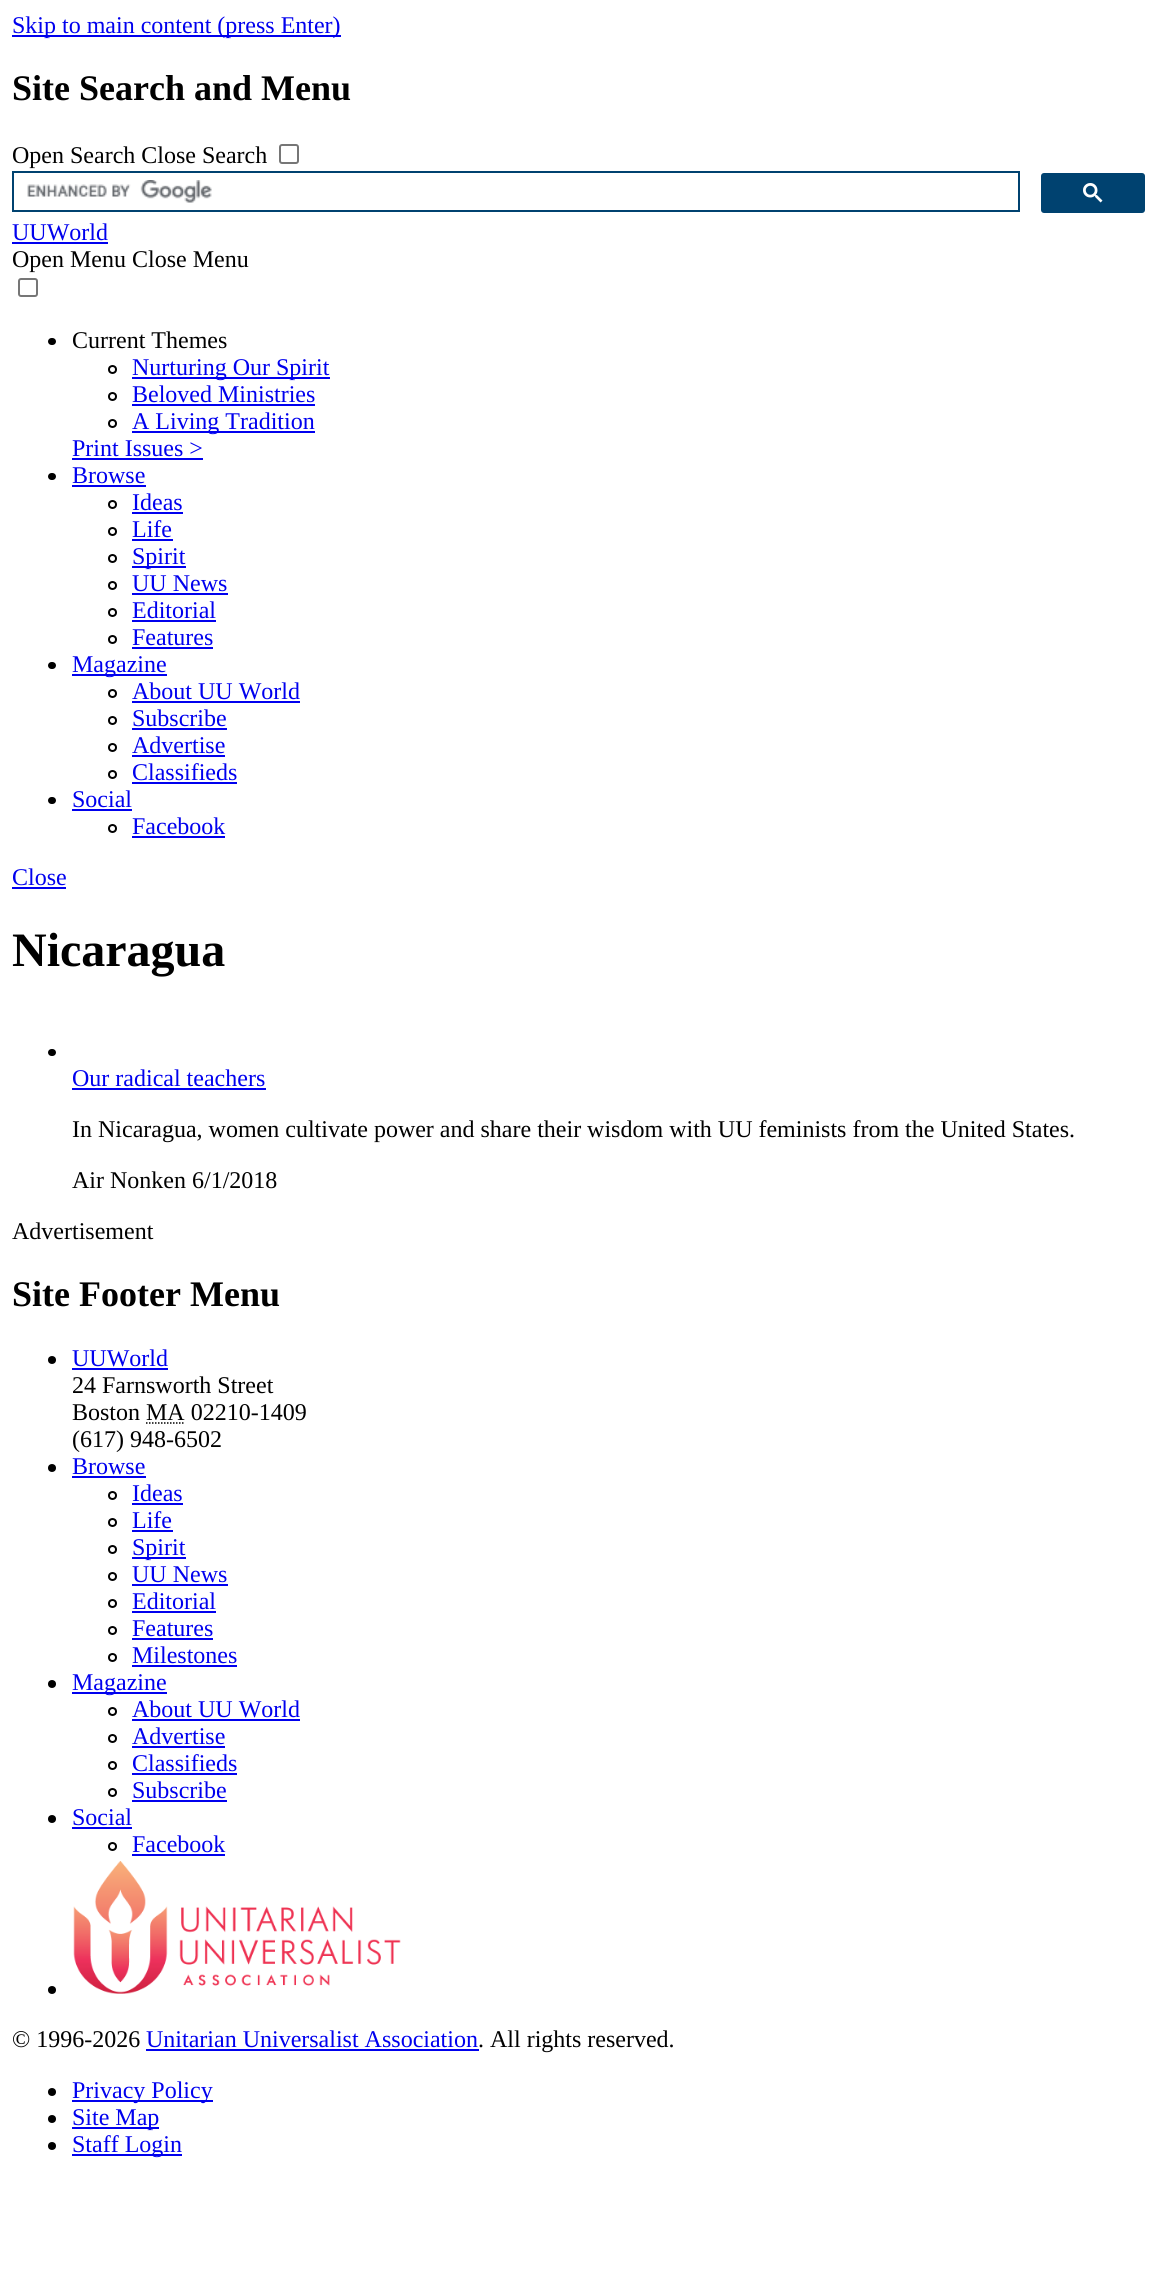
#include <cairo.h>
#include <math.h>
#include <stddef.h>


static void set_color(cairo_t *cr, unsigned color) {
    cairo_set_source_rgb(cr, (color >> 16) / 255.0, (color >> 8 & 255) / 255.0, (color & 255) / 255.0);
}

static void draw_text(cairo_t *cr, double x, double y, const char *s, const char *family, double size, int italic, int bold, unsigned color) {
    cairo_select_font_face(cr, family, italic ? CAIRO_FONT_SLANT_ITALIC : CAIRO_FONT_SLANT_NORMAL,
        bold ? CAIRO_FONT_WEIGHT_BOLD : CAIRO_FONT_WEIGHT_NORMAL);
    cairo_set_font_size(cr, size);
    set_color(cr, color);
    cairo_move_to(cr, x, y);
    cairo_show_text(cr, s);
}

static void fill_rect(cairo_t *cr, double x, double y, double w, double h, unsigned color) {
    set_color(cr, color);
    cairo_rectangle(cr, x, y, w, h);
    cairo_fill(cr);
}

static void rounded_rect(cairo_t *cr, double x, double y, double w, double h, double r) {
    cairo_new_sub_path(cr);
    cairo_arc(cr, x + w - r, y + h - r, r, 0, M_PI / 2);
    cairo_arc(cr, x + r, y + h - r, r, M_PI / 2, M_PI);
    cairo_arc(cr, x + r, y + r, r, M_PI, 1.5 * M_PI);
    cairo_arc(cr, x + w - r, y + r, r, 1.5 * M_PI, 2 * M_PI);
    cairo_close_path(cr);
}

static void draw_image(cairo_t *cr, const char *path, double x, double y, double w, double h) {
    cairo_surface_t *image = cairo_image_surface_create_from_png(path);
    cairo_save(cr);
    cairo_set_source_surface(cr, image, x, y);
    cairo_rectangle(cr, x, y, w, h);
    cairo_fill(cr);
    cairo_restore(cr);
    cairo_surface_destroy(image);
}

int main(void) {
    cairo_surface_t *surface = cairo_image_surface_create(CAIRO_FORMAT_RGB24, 1156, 2272);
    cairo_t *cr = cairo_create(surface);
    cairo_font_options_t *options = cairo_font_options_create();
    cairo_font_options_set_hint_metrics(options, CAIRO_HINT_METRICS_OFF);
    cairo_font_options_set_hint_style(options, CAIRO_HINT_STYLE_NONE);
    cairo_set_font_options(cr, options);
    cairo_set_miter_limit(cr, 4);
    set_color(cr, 0xFFFFFF);
    cairo_paint(cr);
    fill_rect(cr, 12, 35, 329, 2, 0x0000EE);
    draw_text(cr, 12, 33, "Skip to main content (press Enter)", "Liberation Serif", 24, 0, 0, 0x0000EE);
    draw_text(cr, 12, 100, "Site Search and Menu", "Liberation Serif", 36, 0, 1, 0x000000);
    draw_text(cr, 12, 163, "Open Search Close Search", "Liberation Serif", 24, 0, 0, 0x000000);
    rounded_rect(cr, 280, 145, 18, 18, 2);
    set_color(cr, 0x767676);
    cairo_stroke(cr);
    cairo_rectangle(cr, 13, 172, 1006, 39);
    set_color(cr, 0x004270);
    cairo_stroke(cr);
    draw_image(cr, "assets/img1.png", 27, 180, 185, 23);
    rounded_rect(cr, 1042, 174, 102, 38, 2);
    cairo_fill_preserve(cr);
    cairo_stroke(cr);
    draw_image(cr, "assets/img2.png", 1083, 183, 20, 20);
    draw_text(cr, 12, 240, "UUWorld", "Liberation Serif", 24, 0, 0, 0x0000EE);
    fill_rect(cr, 12, 242, 96, 2, 0x0000EE);
    draw_text(cr, 12, 267, "Open Menu Close Menu", "Liberation Serif", 24, 0, 0, 0x000000);
    rounded_rect(cr, 19, 279, 18, 17, 2);
    set_color(cr, 0x767676);
    cairo_stroke(cr);
    set_color(cr, 0x000000);
    rounded_rect(cr, 48, 338, 8, 7, 3.5);
    cairo_fill(cr);
    draw_text(cr, 72, 348, "Current Themes", "Liberation Serif", 24, 0, 0, 0x000000);
    cairo_new_path(cr);
    cairo_arc(cr, 112.5, 369.5, 3.5, 0, 2 * M_PI);
    cairo_stroke(cr);
    fill_rect(cr, 132, 377, 198, 2, 0x0000EE);
    draw_text(cr, 132, 375, "Nurturing Our Spirit", "Liberation Serif", 24, 0, 0, 0x0000EE);
    cairo_new_path(cr);
    cairo_arc(cr, 112.5, 396.5, 3.5, 0, 2 * M_PI);
    set_color(cr, 0x000000);
    cairo_stroke(cr);
    draw_text(cr, 132, 402, "Beloved Ministries", "Liberation Serif", 24, 0, 0, 0x0000EE);
    fill_rect(cr, 132, 404, 183, 2, 0x0000EE);
    cairo_new_path(cr);
    cairo_arc(cr, 112.5, 423.5, 3.5, 0, 2 * M_PI);
    set_color(cr, 0x000000);
    cairo_stroke(cr);
    fill_rect(cr, 132, 431, 183, 2, 0x0000EE);
    draw_text(cr, 132, 429, "A Living Tradition", "Liberation Serif", 24, 0, 0, 0x0000EE);
    draw_text(cr, 72, 456, "Print Issues >", "Liberation Serif", 24, 0, 0, 0x0000EE);
    fill_rect(cr, 72, 458, 131, 2, 0x0000EE);
    set_color(cr, 0x000000);
    rounded_rect(cr, 48, 473, 8, 7, 3.5);
    cairo_fill(cr);
    draw_text(cr, 72, 483, "Browse", "Liberation Serif", 24, 0, 0, 0x0000EE);
    fill_rect(cr, 72, 485, 74, 2, 0x0000EE);
    cairo_new_path(cr);
    cairo_arc(cr, 112.5, 504.5, 3.5, 0, 2 * M_PI);
    set_color(cr, 0x000000);
    cairo_stroke(cr);
    draw_text(cr, 132, 510, "Ideas", "Liberation Serif", 24, 0, 0, 0x0000EE);
    fill_rect(cr, 132, 512, 51, 2, 0x0000EE);
    cairo_new_path(cr);
    cairo_arc(cr, 112.5, 531.5, 3.5, 0, 2 * M_PI);
    set_color(cr, 0x000000);
    cairo_stroke(cr);
    draw_text(cr, 132, 537, "Life", "Liberation Serif", 24, 0, 0, 0x0000EE);
    fill_rect(cr, 132, 539, 41, 2, 0x0000EE);
    cairo_new_path(cr);
    cairo_arc(cr, 112.5, 558.5, 3.5, 0, 2 * M_PI);
    set_color(cr, 0x000000);
    cairo_stroke(cr);
    fill_rect(cr, 132, 566, 54, 2, 0x0000EE);
    draw_text(cr, 132, 564, "Spirit", "Liberation Serif", 24, 0, 0, 0x0000EE);
    cairo_new_path(cr);
    cairo_arc(cr, 112.5, 585.5, 3.5, 0, 2 * M_PI);
    set_color(cr, 0x000000);
    cairo_stroke(cr);
    draw_text(cr, 132, 591, "UU News", "Liberation Serif", 24, 0, 0, 0x0000EE);
    fill_rect(cr, 132, 593, 96, 2, 0x0000EE);
    cairo_new_path(cr);
    cairo_arc(cr, 112.5, 612.5, 3.5, 0, 2 * M_PI);
    set_color(cr, 0x000000);
    cairo_stroke(cr);
    draw_text(cr, 132, 618, "Editorial", "Liberation Serif", 24, 0, 0, 0x0000EE);
    fill_rect(cr, 132, 620, 84, 2, 0x0000EE);
    cairo_new_path(cr);
    cairo_arc(cr, 112.5, 639.5, 3.5, 0, 2 * M_PI);
    set_color(cr, 0x000000);
    cairo_stroke(cr);
    draw_text(cr, 132, 645, "Features", "Liberation Serif", 24, 0, 0, 0x0000EE);
    fill_rect(cr, 132, 647, 81, 2, 0x0000EE);
    set_color(cr, 0x000000);
    rounded_rect(cr, 48, 662, 8, 7, 3.5);
    cairo_fill(cr);
    fill_rect(cr, 72, 674, 95, 2, 0x0000EE);
    draw_text(cr, 72, 672, "Magazine", "Liberation Serif", 24, 0, 0, 0x0000EE);
    cairo_new_path(cr);
    cairo_arc(cr, 112.5, 693.5, 3.5, 0, 2 * M_PI);
    set_color(cr, 0x000000);
    cairo_stroke(cr);
    draw_text(cr, 132, 699, "About UU World", "Liberation Serif", 24, 0, 0, 0x0000EE);
    fill_rect(cr, 132, 701, 168, 2, 0x0000EE);
    cairo_new_path(cr);
    cairo_arc(cr, 112.5, 720.5, 3.5, 0, 2 * M_PI);
    set_color(cr, 0x000000);
    cairo_stroke(cr);
    draw_text(cr, 132, 726, "Subscribe", "Liberation Serif", 24, 0, 0, 0x0000EE);
    fill_rect(cr, 132, 728, 95, 2, 0x0000EE);
    cairo_new_path(cr);
    cairo_arc(cr, 112.5, 747.5, 3.5, 0, 2 * M_PI);
    set_color(cr, 0x000000);
    cairo_stroke(cr);
    draw_text(cr, 132, 753, "Advertise", "Liberation Serif", 24, 0, 0, 0x0000EE);
    fill_rect(cr, 132, 755, 93, 2, 0x0000EE);
    cairo_new_path(cr);
    cairo_arc(cr, 112.5, 774.5, 3.5, 0, 2 * M_PI);
    set_color(cr, 0x000000);
    cairo_stroke(cr);
    draw_text(cr, 132, 780, "Classifieds", "Liberation Serif", 24, 0, 0, 0x0000EE);
    fill_rect(cr, 132, 782, 105, 2, 0x0000EE);
    set_color(cr, 0x000000);
    rounded_rect(cr, 48, 797, 8, 7, 3.5);
    cairo_fill(cr);
    draw_text(cr, 72, 807, "Social", "Liberation Serif", 24, 0, 0, 0x0000EE);
    fill_rect(cr, 72, 809, 60, 2, 0x0000EE);
    cairo_new_path(cr);
    cairo_arc(cr, 112.5, 828.5, 3.5, 0, 2 * M_PI);
    set_color(cr, 0x000000);
    cairo_stroke(cr);
    draw_text(cr, 132, 834, "Facebook", "Liberation Serif", 24, 0, 0, 0x0000EE);
    fill_rect(cr, 132, 836, 93, 2, 0x0000EE);
    draw_text(cr, 12, 885, "Close", "Liberation Serif", 24, 0, 0, 0x0000EE);
    fill_rect(cr, 12, 887, 54, 2, 0x0000EE);
    draw_text(cr, 12, 966, "Nicaragua", "Liberation Serif", 48, 0, 1, 0x000000);
    rounded_rect(cr, 48, 1049, 8, 7, 3.5);
    cairo_fill(cr);
    draw_text(cr, 72, 1086, "Our radical teachers", "Liberation Serif", 24, 0, 0, 0x0000EE);
    fill_rect(cr, 72, 1088, 194, 2, 0x0000EE);
    draw_text(cr, 72, 1137, "In Nicaragua, women cultivate power and share their wisdom with UU feminists from the United States.", "Liberation Serif", 24, 0, 0, 0x000000);
    draw_text(cr, 72, 1188, "Air Nonken 6/1/2018", "Liberation Serif", 24, 0, 0, 0x000000);
    draw_text(cr, 12, 1239, "Advertisement", "Liberation Serif", 24, 0, 0, 0x000000);
    draw_text(cr, 12, 1306, "Site Footer Menu", "Liberation Serif", 36, 0, 1, 0x000000);
    cairo_new_path(cr);
    cairo_arc(cr, 52, 1360, 4, 0, 2 * M_PI);
    cairo_fill(cr);
    draw_text(cr, 72, 1366, "UUWorld", "Liberation Serif", 24, 0, 0, 0x0000EE);
    fill_rect(cr, 72, 1368, 96, 2, 0x0000EE);
    draw_text(cr, 72, 1393, "24 Farnsworth Street", "Liberation Serif", 24, 0, 0, 0x000000);
    draw_text(cr, 72, 1420, "Boston MA 02210-1409", "Liberation Serif", 24, 0, 0, 0x000000);
    cairo_new_path(cr);
    cairo_move_to(cr, 146, 1423);
    cairo_line_to(cr, 184.5, 1423);
    cairo_set_line_width(cr, 1.5);
    cairo_set_dash(cr, (double[]){1.5, 1.5}, 2, 0);
    cairo_stroke(cr);
    draw_text(cr, 72, 1447, "(617) 948-6502", "Liberation Serif", 24, 0, 0, 0x000000);
    cairo_new_path(cr);
    cairo_arc(cr, 52, 1468, 4, 0, 2 * M_PI);
    cairo_fill(cr);
    draw_text(cr, 72, 1474, "Browse", "Liberation Serif", 24, 0, 0, 0x0000EE);
    fill_rect(cr, 72, 1476, 74, 2, 0x0000EE);
    cairo_new_path(cr);
    cairo_arc(cr, 112.5, 1495.5, 3.5, 0, 2 * M_PI);
    set_color(cr, 0x000000);
    cairo_set_line_width(cr, 2);
    cairo_set_dash(cr, NULL, 0, 0);
    cairo_stroke(cr);
    draw_text(cr, 132, 1501, "Ideas", "Liberation Serif", 24, 0, 0, 0x0000EE);
    fill_rect(cr, 132, 1503, 51, 2, 0x0000EE);
    cairo_new_path(cr);
    cairo_arc(cr, 112.5, 1522.5, 3.5, 0, 2 * M_PI);
    set_color(cr, 0x000000);
    cairo_stroke(cr);
    draw_text(cr, 132, 1528, "Life", "Liberation Serif", 24, 0, 0, 0x0000EE);
    fill_rect(cr, 132, 1530, 41, 2, 0x0000EE);
    cairo_new_path(cr);
    cairo_arc(cr, 112.5, 1549.5, 3.5, 0, 2 * M_PI);
    set_color(cr, 0x000000);
    cairo_stroke(cr);
    fill_rect(cr, 132, 1557, 54, 2, 0x0000EE);
    draw_text(cr, 132, 1555, "Spirit", "Liberation Serif", 24, 0, 0, 0x0000EE);
    cairo_new_path(cr);
    cairo_arc(cr, 112.5, 1576.5, 3.5, 0, 2 * M_PI);
    set_color(cr, 0x000000);
    cairo_stroke(cr);
    draw_text(cr, 132, 1582, "UU News", "Liberation Serif", 24, 0, 0, 0x0000EE);
    fill_rect(cr, 132, 1584, 96, 2, 0x0000EE);
    cairo_new_path(cr);
    cairo_arc(cr, 112.5, 1603.5, 3.5, 0, 2 * M_PI);
    set_color(cr, 0x000000);
    cairo_stroke(cr);
    draw_text(cr, 132, 1609, "Editorial", "Liberation Serif", 24, 0, 0, 0x0000EE);
    fill_rect(cr, 132, 1611, 84, 2, 0x0000EE);
    cairo_new_path(cr);
    cairo_arc(cr, 112.5, 1630.5, 3.5, 0, 2 * M_PI);
    set_color(cr, 0x000000);
    cairo_stroke(cr);
    draw_text(cr, 132, 1636, "Features", "Liberation Serif", 24, 0, 0, 0x0000EE);
    fill_rect(cr, 132, 1638, 81, 2, 0x0000EE);
    cairo_new_path(cr);
    cairo_arc(cr, 112.5, 1657.5, 3.5, 0, 2 * M_PI);
    set_color(cr, 0x000000);
    cairo_stroke(cr);
    draw_text(cr, 132, 1663, "Milestones", "Liberation Serif", 24, 0, 0, 0x0000EE);
    fill_rect(cr, 132, 1665, 105, 2, 0x0000EE);
    set_color(cr, 0x000000);
    cairo_new_path(cr);
    cairo_arc(cr, 52, 1684, 4, 0, 2 * M_PI);
    cairo_fill(cr);
    fill_rect(cr, 72, 1692, 95, 2, 0x0000EE);
    draw_text(cr, 72, 1690, "Magazine", "Liberation Serif", 24, 0, 0, 0x0000EE);
    cairo_new_path(cr);
    cairo_arc(cr, 112.5, 1711.5, 3.5, 0, 2 * M_PI);
    set_color(cr, 0x000000);
    cairo_stroke(cr);
    draw_text(cr, 132, 1717, "About UU World", "Liberation Serif", 24, 0, 0, 0x0000EE);
    fill_rect(cr, 132, 1719, 168, 2, 0x0000EE);
    cairo_new_path(cr);
    cairo_arc(cr, 112.5, 1738.5, 3.5, 0, 2 * M_PI);
    set_color(cr, 0x000000);
    cairo_stroke(cr);
    draw_text(cr, 132, 1744, "Advertise", "Liberation Serif", 24, 0, 0, 0x0000EE);
    fill_rect(cr, 132, 1746, 93, 2, 0x0000EE);
    cairo_new_path(cr);
    cairo_arc(cr, 112.5, 1765.5, 3.5, 0, 2 * M_PI);
    set_color(cr, 0x000000);
    cairo_stroke(cr);
    draw_text(cr, 132, 1771, "Classifieds", "Liberation Serif", 24, 0, 0, 0x0000EE);
    fill_rect(cr, 132, 1773, 105, 2, 0x0000EE);
    cairo_new_path(cr);
    cairo_arc(cr, 112.5, 1792.5, 3.5, 0, 2 * M_PI);
    set_color(cr, 0x000000);
    cairo_stroke(cr);
    draw_text(cr, 132, 1798, "Subscribe", "Liberation Serif", 24, 0, 0, 0x0000EE);
    fill_rect(cr, 132, 1800, 95, 2, 0x0000EE);
    set_color(cr, 0x000000);
    cairo_new_path(cr);
    cairo_arc(cr, 52, 1819, 4, 0, 2 * M_PI);
    cairo_fill(cr);
    draw_text(cr, 72, 1825, "Social", "Liberation Serif", 24, 0, 0, 0x0000EE);
    fill_rect(cr, 72, 1827, 60, 2, 0x0000EE);
    cairo_new_path(cr);
    cairo_arc(cr, 112.5, 1846.5, 3.5, 0, 2 * M_PI);
    set_color(cr, 0x000000);
    cairo_stroke(cr);
    draw_text(cr, 132, 1852, "Facebook", "Liberation Serif", 24, 0, 0, 0x0000EE);
    fill_rect(cr, 132, 1854, 93, 2, 0x0000EE);
    set_color(cr, 0x000000);
    cairo_new_path(cr);
    cairo_arc(cr, 52, 1990, 4, 0, 2 * M_PI);
    cairo_fill(cr);
    draw_image(cr, "assets/img3.png", 73, 1861, 328, 133);
    draw_text(cr, 12, 2047, "© 1996-2026", "Liberation Serif", 24, 0, 0, 0x000000);
    draw_text(cr, 146, 2047, "Unitarian Universalist Association", "Liberation Serif", 24, 0, 0, 0x0000EE);
    fill_rect(cr, 146, 2049, 333, 2, 0x0000EE);
    draw_text(cr, 478, 2047, ". All rights reserved.", "Liberation Serif", 24, 0, 0, 0x000000);
    cairo_new_path(cr);
    cairo_arc(cr, 52, 2092, 4, 0, 2 * M_PI);
    cairo_fill(cr);
    fill_rect(cr, 72, 2100, 141, 2, 0x0000EE);
    draw_text(cr, 72, 2098, "Privacy Policy", "Liberation Serif", 24, 0, 0, 0x0000EE);
    set_color(cr, 0x000000);
    cairo_new_path(cr);
    cairo_arc(cr, 52, 2119, 4, 0, 2 * M_PI);
    cairo_fill(cr);
    fill_rect(cr, 72, 2127, 87, 2, 0x0000EE);
    draw_text(cr, 72, 2125, "Site Map", "Liberation Serif", 24, 0, 0, 0x0000EE);
    set_color(cr, 0x000000);
    cairo_new_path(cr);
    cairo_arc(cr, 52, 2146, 4, 0, 2 * M_PI);
    cairo_fill(cr);
    fill_rect(cr, 72, 2154, 110, 2, 0x0000EE);
    draw_text(cr, 72, 2152, "Staff Login", "Liberation Serif", 24, 0, 0, 0x0000EE);
    cairo_surface_write_to_png(surface, "output.png");
    cairo_font_options_destroy(options);
    cairo_destroy(cr);
    cairo_surface_destroy(surface);
    return 0;
}
